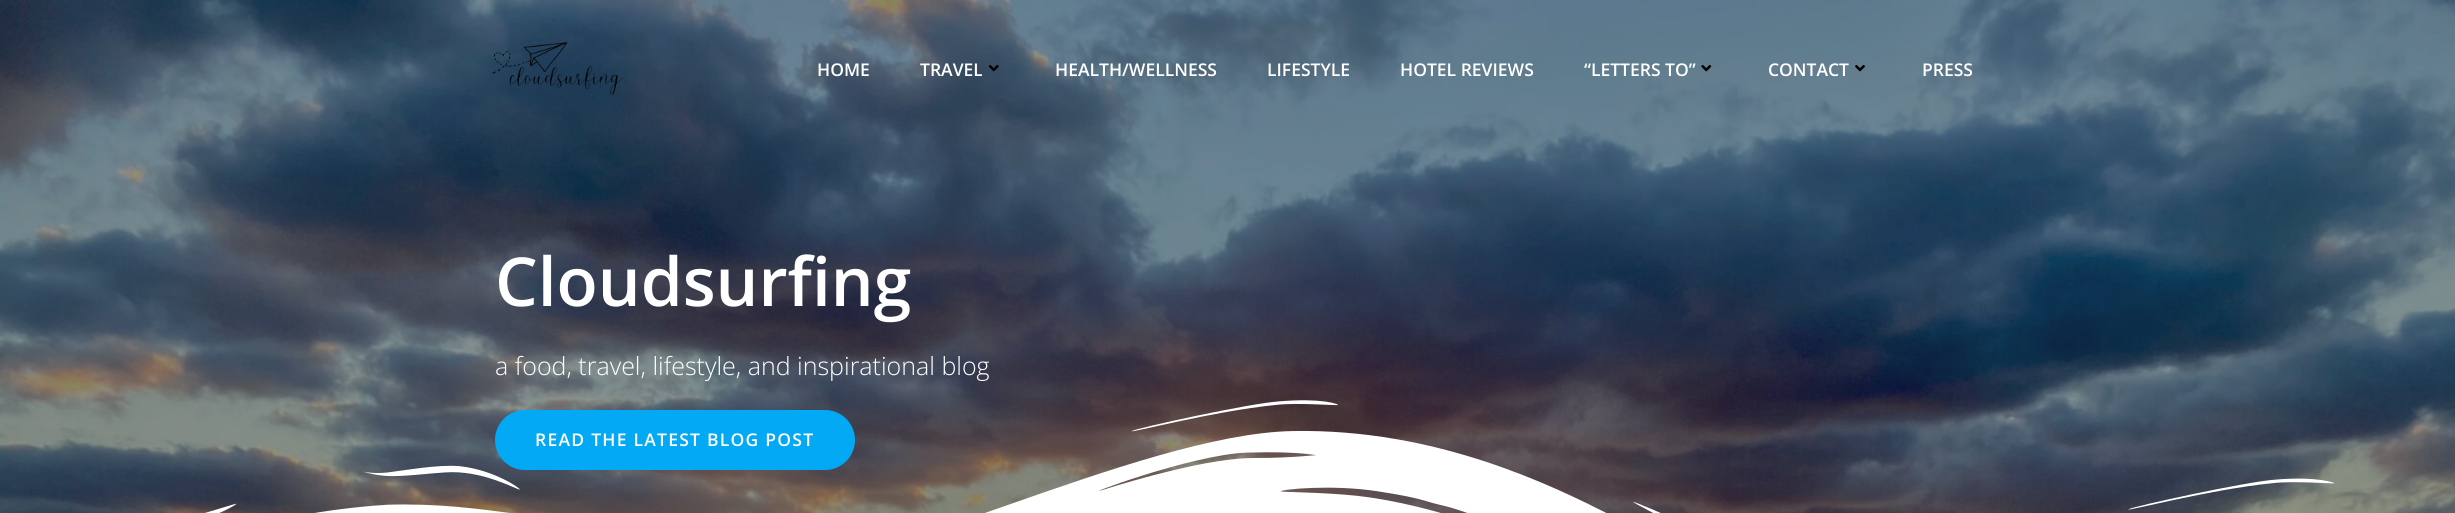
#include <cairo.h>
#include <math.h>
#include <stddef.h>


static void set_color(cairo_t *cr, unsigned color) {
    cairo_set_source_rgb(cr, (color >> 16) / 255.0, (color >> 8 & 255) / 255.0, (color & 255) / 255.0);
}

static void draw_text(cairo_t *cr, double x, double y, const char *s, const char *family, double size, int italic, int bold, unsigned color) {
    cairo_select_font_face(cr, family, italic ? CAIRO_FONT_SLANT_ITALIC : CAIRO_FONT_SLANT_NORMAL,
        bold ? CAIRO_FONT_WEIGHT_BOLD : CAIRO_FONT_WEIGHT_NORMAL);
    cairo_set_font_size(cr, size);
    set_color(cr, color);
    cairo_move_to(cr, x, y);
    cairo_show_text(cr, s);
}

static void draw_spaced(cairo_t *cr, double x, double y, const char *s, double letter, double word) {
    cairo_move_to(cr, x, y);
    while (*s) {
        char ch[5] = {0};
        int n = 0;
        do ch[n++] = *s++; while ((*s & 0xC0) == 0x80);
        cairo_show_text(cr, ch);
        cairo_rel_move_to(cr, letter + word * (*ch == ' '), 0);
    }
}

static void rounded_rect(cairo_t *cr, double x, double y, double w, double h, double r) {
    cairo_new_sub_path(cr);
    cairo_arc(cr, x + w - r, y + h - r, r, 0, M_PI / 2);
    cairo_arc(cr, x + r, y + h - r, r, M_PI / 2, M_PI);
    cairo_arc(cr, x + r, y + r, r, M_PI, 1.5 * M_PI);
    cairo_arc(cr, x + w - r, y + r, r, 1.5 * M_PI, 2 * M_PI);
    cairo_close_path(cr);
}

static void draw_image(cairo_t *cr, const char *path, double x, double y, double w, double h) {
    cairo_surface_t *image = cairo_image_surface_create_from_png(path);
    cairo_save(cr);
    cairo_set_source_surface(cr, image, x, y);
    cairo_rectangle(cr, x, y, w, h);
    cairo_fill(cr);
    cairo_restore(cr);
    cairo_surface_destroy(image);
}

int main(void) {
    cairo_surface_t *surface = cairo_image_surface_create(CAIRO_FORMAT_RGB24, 2455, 513);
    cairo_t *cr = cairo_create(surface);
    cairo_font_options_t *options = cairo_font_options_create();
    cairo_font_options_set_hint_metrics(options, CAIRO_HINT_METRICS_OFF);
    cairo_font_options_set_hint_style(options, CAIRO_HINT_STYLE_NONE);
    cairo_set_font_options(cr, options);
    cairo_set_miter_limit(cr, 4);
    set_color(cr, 0xFFFFFF);
    cairo_paint(cr);
    draw_image(cr, "assets/img5.png", 0, 0, 2455, 513);
    draw_image(cr, "assets/img1.png", 492, 42, 131, 53);
    draw_text(cr, 817, 76, "HOME", "Open Sans SemiBold", 17.5, 0, 0, 0xFFFFFF);
    draw_text(cr, 920, 76, "TRAVEL", "Open Sans SemiBold", 17.5, 0, 0, 0xFFFFFF);
    draw_image(cr, "assets/img2.png", 988, 65, 11, 7);
    draw_text(cr, 1055, 76, "HEALTH/WELLNESS", "Open Sans SemiBold", 17.5, 0, 0, 0xFFFFFF);
    draw_text(cr, 1267, 76, "LIFESTYLE", "Open Sans SemiBold", 17.5, 0, 0, 0xFFFFFF);
    draw_text(cr, 1400, 76, "HOTEL REVIEWS", "Open Sans SemiBold", 17.5, 0, 0, 0xFFFFFF);
    draw_text(cr, 1584, 76, "“LETTERS TO”", "Open Sans SemiBold", 17.5, 0, 0, 0xFFFFFF);
    draw_image(cr, "assets/img3.png", 1701, 65, 11, 7);
    draw_text(cr, 1768, 76, "CONTACT", "Open Sans SemiBold", 17.5, 0, 0, 0xFFFFFF);
    draw_image(cr, "assets/img4.png", 1855, 65, 10, 7);
    draw_text(cr, 1922, 76, "PRESS", "Open Sans SemiBold", 17.5, 0, 0, 0xFFFFFF);
    draw_text(cr, 495, 306, "Cloudsurfing", "Open Sans SemiBold", 67.5, 0, 0, 0xFFFFFF);
    draw_text(cr, 495, 375, "a food, travel, lifestyle, and inspirational blog", "Open Sans Light", 25, 0, 0, 0xFFFFFF);
    draw_image(cr, "assets/img6.png", 205, 400, 2130, 113);
    set_color(cr, 0x03A9F4);
    rounded_rect(cr, 496.5, 411.5, 357, 57, 28.5);
    cairo_fill_preserve(cr);
    cairo_set_line_width(cr, 3);
    cairo_stroke(cr);
    cairo_select_font_face(cr, "Open Sans SemiBold", CAIRO_FONT_SLANT_NORMAL, CAIRO_FONT_WEIGHT_NORMAL);
    cairo_set_font_size(cr, 17.5);
    set_color(cr, 0xFFFFFF);
    draw_spaced(cr, 535, 446, "READ THE LATEST BLOG POST", 1.25, 0);
    cairo_surface_write_to_png(surface, "output.png");
    cairo_font_options_destroy(options);
    cairo_destroy(cr);
    cairo_surface_destroy(surface);
    return 0;
}
